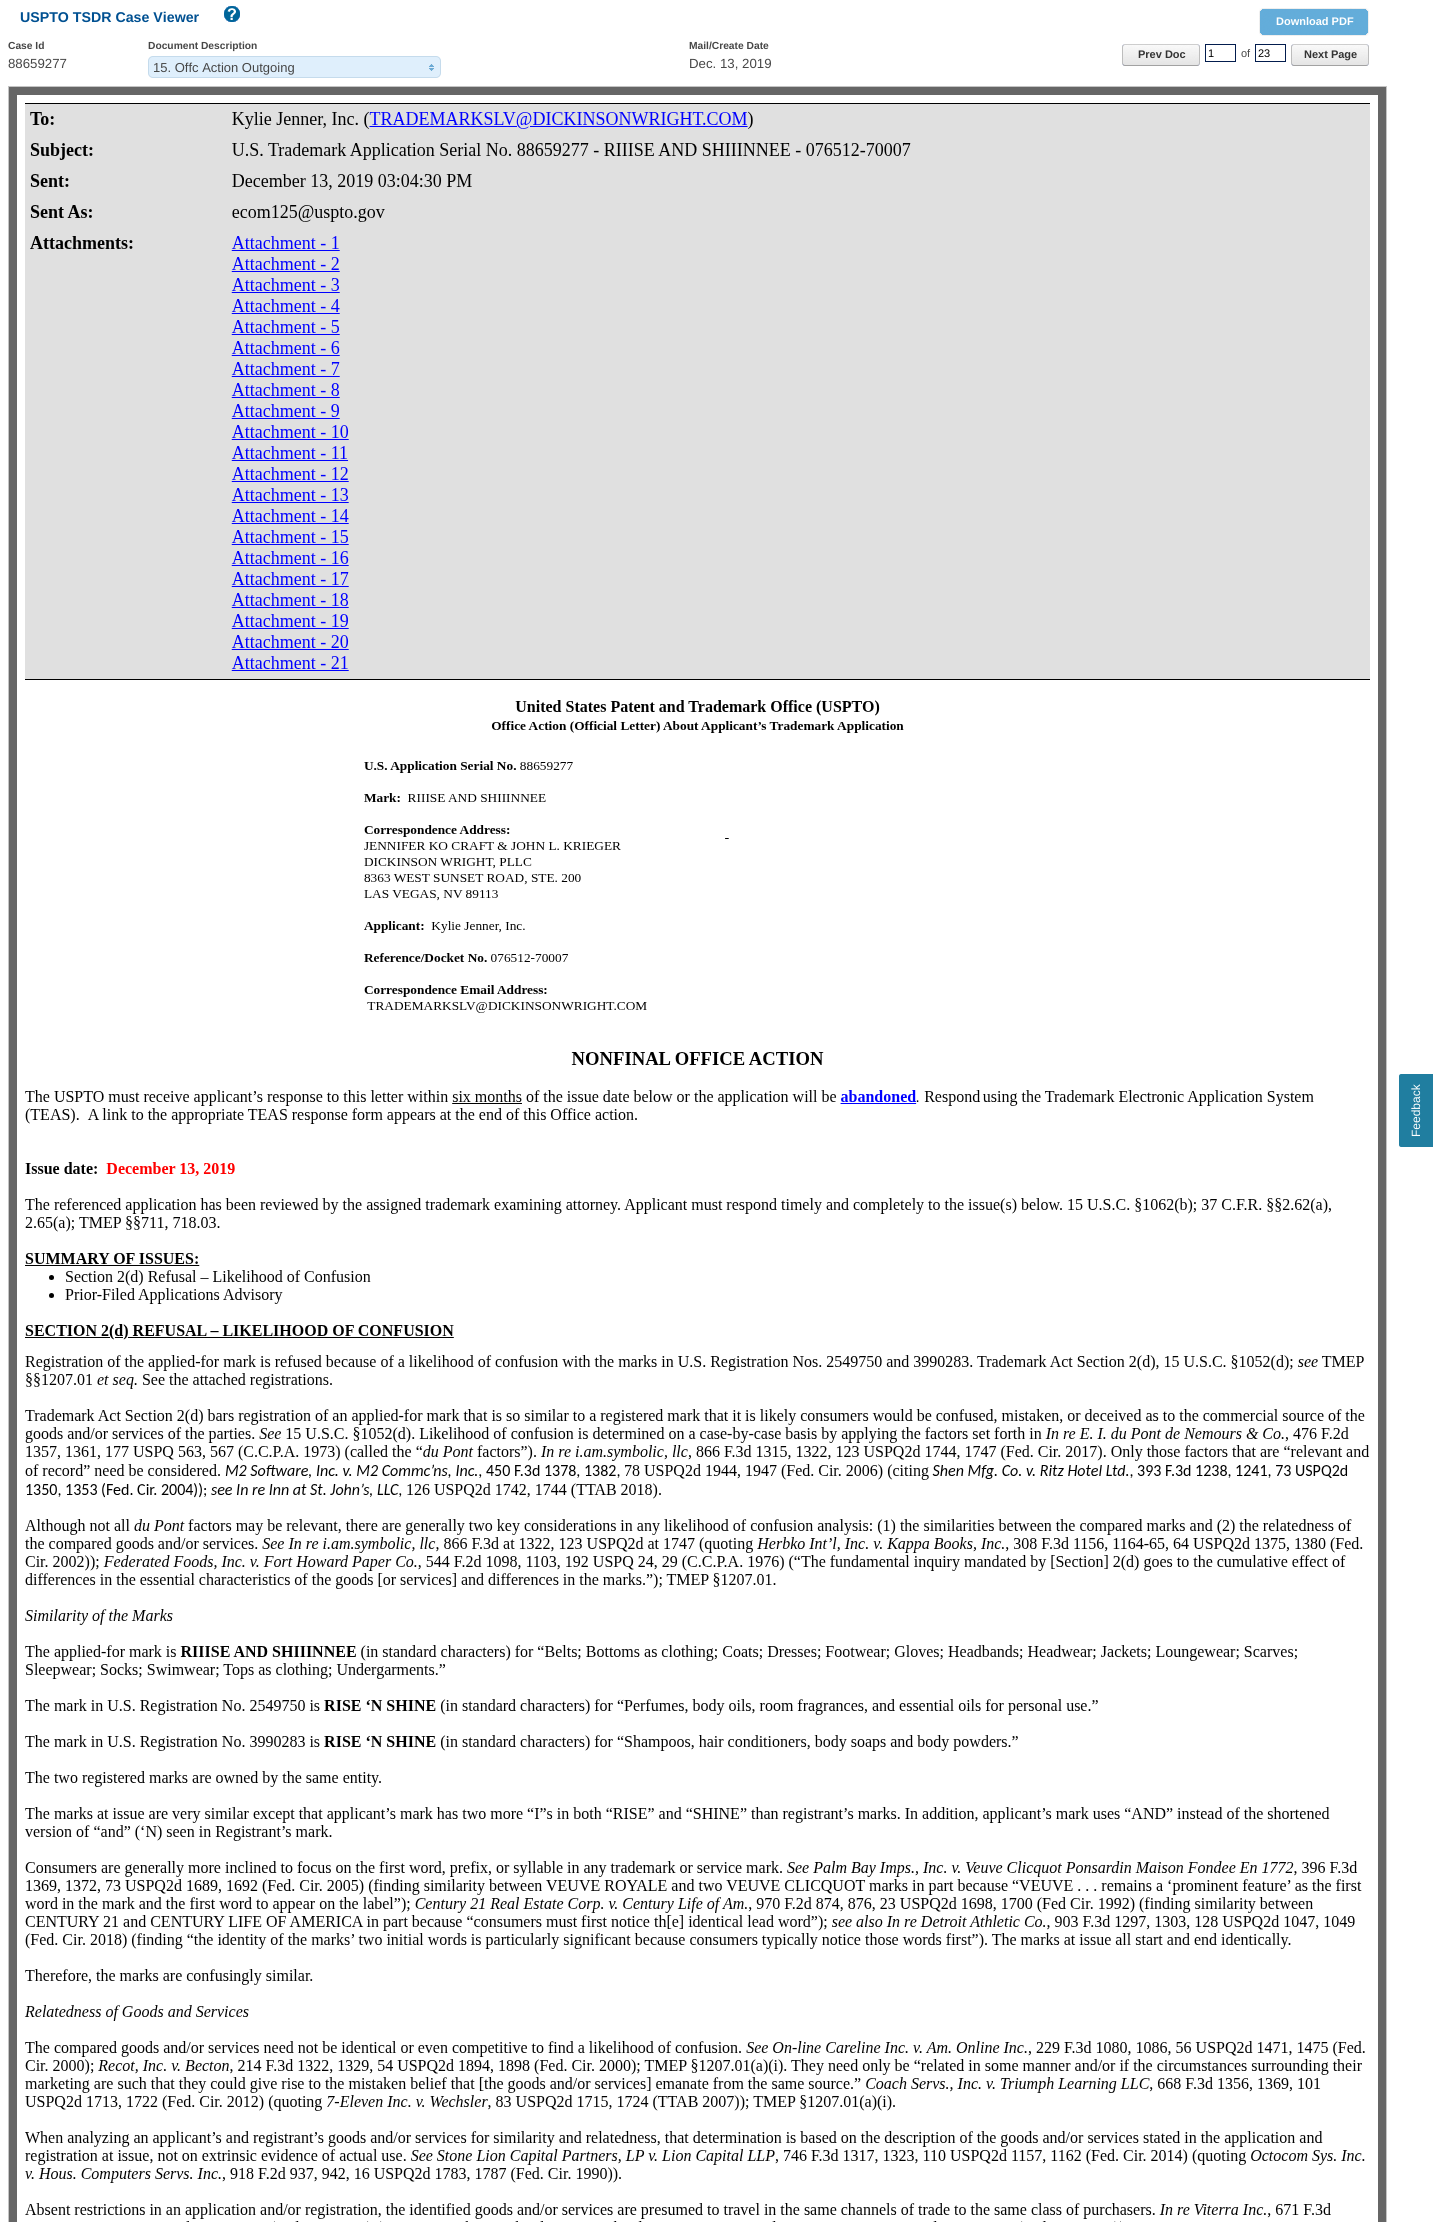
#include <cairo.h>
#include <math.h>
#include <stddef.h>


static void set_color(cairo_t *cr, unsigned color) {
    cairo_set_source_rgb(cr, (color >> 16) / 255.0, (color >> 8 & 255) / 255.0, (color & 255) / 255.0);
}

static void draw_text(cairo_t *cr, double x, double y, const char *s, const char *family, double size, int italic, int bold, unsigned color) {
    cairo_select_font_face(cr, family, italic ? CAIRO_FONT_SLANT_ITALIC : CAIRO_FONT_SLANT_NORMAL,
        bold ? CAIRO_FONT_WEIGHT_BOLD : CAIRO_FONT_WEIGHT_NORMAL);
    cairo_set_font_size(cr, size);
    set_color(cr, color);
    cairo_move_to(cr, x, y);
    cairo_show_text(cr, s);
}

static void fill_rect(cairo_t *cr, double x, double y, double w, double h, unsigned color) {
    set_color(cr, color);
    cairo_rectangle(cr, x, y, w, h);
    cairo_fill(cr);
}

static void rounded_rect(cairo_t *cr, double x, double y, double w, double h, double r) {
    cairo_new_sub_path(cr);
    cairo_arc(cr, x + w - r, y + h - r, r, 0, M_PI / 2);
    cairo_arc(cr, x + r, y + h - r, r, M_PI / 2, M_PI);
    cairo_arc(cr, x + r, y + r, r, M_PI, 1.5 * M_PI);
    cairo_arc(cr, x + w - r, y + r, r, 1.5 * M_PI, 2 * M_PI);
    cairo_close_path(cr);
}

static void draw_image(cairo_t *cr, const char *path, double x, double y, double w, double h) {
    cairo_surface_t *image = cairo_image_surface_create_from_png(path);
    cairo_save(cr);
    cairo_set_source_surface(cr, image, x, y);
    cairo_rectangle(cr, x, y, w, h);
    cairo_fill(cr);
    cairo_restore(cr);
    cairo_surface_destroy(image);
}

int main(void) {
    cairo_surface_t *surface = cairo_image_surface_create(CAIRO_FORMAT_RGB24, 1433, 2222);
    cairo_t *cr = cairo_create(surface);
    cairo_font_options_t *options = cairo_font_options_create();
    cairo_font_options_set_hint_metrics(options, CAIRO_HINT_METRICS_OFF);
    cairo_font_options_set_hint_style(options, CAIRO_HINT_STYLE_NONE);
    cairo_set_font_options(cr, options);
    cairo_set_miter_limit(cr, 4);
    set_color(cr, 0xFFFFFF);
    cairo_paint(cr);
    draw_text(cr, 20, 22, "USPTO TSDR Case Viewer", "Liberation Sans", 14.2, 0, 1, 0x005091);
    draw_image(cr, "assets/img1.png", 224, 6, 16, 16);
    draw_image(cr, "assets/img2.png", 1259, 8, 110, 28);
    draw_text(cr, 1276, 25, "Download PDF", "Liberation Sans", 11, 0, 1, 0xFFFFFF);
    draw_text(cr, 8, 49, "Case Id", "Liberation Sans", 10.25, 0, 1, 0x464646);
    draw_text(cr, 8, 68, "88659277", "Liberation Sans", 13.25, 0, 0, 0x464646);
    draw_text(cr, 148, 49, "Document Description", "Liberation Sans", 10.25, 0, 1, 0x464646);
    set_color(cr, 0xDFEFFC);
    rounded_rect(cr, 148.5, 56.5, 292, 21, 4.5);
    cairo_fill_preserve(cr);
    set_color(cr, 0xC5DBEC);
    cairo_set_line_width(cr, 1);
    cairo_stroke(cr);
    draw_text(cr, 153, 72, "15. Offc Action Outgoing", "Liberation Sans", 13, 0, 0, 0x464646);
    draw_image(cr, "assets/img3.png", 429, 64, 5, 7);
    draw_text(cr, 689, 49, "Mail/Create Date", "Liberation Sans", 10.25, 0, 1, 0x464646);
    draw_text(cr, 689, 68, "Dec. 13, 2019", "Liberation Sans", 13.25, 0, 0, 0x464646);
    draw_image(cr, "assets/img4.png", 1122, 44, 78, 22);
    draw_text(cr, 1138, 58, "Prev Doc", "Liberation Sans", 11, 0, 1, 0x333333);
    cairo_rectangle(cr, 1205.5, 44.5, 30, 17);
    set_color(cr, 0x031D4E);
    cairo_stroke(cr);
    draw_text(cr, 1208, 57, "1", "Liberation Sans", 11, 0, 0, 0x000000);
    draw_text(cr, 1241, 57, "of", "Liberation Sans", 11, 0, 0, 0x464646);
    cairo_rectangle(cr, 1255.5, 44.5, 30, 17);
    set_color(cr, 0x031D4E);
    cairo_stroke(cr);
    draw_text(cr, 1258, 57, "23", "Liberation Sans", 11, 0, 0, 0x000000);
    draw_image(cr, "assets/img4.png", 1291, 44, 78, 22);
    draw_text(cr, 1304, 58, "Next Page", "Liberation Sans", 11, 0, 1, 0x333333);
    set_color(cr, 0x666666);
    cairo_rectangle(cr, 8.5, 86.5, 1378, 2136);
    cairo_fill_preserve(cr);
    set_color(cr, 0xC4C4C4);
    cairo_stroke(cr);
    fill_rect(cr, 17, 95, 1361, 2127, 0xFFFFFF);
    draw_image(cr, "assets/img5.png", 24, 103, 1346, 2119);
    set_color(cr, 0x207EA0);
    cairo_new_path(cr);
    cairo_move_to(cr, 1433, 1147);
    cairo_line_to(cr, 1401, 1147);
    cairo_curve_to(cr, 1400, 1147, 1399, 1146, 1399, 1145);
    cairo_line_to(cr, 1399, 1076);
    cairo_curve_to(cr, 1399, 1075, 1400, 1074, 1401, 1074);
    cairo_line_to(cr, 1433, 1074);
    cairo_close_path(cr);
    cairo_fill(cr);
    cairo_save(cr);
    cairo_translate(cr, 1420, 1137);
    cairo_rotate(cr, -90 * M_PI / 180);
    draw_text(cr, 0, 0, "Feedback", "Liberation Sans", 12, 0, 0, 0xFFFFFF);
    cairo_restore(cr);
    cairo_surface_write_to_png(surface, "output.png");
    cairo_font_options_destroy(options);
    cairo_destroy(cr);
    cairo_surface_destroy(surface);
    return 0;
}
